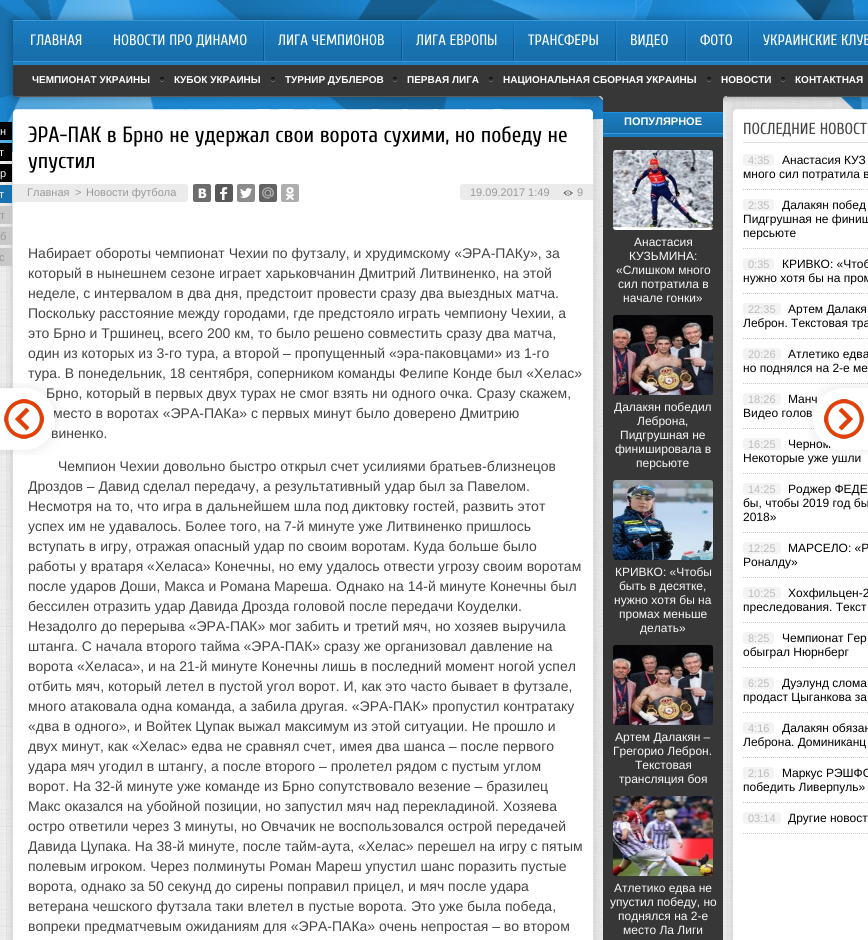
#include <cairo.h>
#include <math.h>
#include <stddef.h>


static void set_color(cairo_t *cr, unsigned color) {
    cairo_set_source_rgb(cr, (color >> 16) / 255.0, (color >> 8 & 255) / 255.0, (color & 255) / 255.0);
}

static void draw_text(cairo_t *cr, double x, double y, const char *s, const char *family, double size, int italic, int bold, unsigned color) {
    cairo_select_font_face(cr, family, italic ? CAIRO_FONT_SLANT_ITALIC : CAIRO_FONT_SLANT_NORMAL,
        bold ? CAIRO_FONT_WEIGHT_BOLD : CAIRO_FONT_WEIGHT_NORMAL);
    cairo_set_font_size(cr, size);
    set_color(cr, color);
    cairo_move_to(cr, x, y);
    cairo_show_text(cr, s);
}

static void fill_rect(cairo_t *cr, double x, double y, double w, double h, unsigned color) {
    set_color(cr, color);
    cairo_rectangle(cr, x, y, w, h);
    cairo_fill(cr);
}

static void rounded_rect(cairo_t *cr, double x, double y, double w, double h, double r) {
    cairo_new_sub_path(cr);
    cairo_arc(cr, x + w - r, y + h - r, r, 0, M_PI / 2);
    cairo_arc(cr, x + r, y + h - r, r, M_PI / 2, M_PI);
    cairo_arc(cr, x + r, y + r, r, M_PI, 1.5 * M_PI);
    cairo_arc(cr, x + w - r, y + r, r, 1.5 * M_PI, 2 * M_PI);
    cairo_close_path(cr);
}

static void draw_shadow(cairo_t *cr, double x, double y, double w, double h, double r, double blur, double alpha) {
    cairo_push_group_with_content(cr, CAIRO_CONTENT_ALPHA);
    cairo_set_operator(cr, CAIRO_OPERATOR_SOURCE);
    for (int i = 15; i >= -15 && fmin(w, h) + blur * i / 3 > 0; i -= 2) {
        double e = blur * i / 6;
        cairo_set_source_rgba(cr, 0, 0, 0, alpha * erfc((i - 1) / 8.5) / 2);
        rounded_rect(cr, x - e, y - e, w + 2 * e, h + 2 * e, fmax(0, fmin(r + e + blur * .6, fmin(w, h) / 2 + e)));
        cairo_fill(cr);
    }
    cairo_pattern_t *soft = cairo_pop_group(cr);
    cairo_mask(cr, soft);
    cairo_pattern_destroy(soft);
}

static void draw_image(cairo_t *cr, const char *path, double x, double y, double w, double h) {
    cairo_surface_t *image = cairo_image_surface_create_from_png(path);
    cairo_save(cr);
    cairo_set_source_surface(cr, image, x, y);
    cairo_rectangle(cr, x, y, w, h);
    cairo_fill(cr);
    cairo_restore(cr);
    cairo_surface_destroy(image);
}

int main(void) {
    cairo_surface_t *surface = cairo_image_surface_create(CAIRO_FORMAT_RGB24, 868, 940);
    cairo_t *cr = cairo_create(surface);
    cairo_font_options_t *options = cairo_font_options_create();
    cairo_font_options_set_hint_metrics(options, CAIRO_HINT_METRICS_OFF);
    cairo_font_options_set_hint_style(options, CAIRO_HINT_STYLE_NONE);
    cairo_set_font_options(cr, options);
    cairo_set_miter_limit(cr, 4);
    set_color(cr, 0xFFFFFF);
    cairo_paint(cr);
    draw_image(cr, "assets/img1.png", 0, 0, 863, 940);
    draw_image(cr, "assets/img2.png", 0, 0, 868, 153);
    set_color(cr, 0x000000);
    draw_shadow(cr, 13, 20, 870, 77, 0, 5, 0.4);
    draw_image(cr, "assets/img3.png", 13, 21, 855, 40);
    fill_rect(cr, 13, 20, 855, 1, 0x3C99D6);
    fill_rect(cr, 13, 61, 855, 1, 0x2D99E1);
    draw_text(cr, 30, 45, "ГЛАВНАЯ", "Cuprum", 15, 0, 0, 0xFFFFFF);
    draw_text(cr, 113, 45, "НОВОСТИ ПРО ДИНАМО", "Cuprum", 15, 0, 0, 0xFFFFFF);
    draw_image(cr, "assets/img4.png", 263, 21, 2, 40);
    draw_text(cr, 278, 45, "ЛИГА ЧЕМПИОНОВ", "Cuprum", 15, 0, 0, 0xFFFFFF);
    draw_image(cr, "assets/img4.png", 401, 21, 2, 40);
    draw_text(cr, 416, 45, "ЛИГА ЕВРОПЫ", "Cuprum", 15, 0, 0, 0xFFFFFF);
    draw_image(cr, "assets/img4.png", 513, 21, 2, 40);
    draw_text(cr, 528, 45, "ТРАНСФЕРЫ", "Cuprum", 15, 0, 0, 0xFFFFFF);
    draw_image(cr, "assets/img4.png", 615, 21, 2, 40);
    draw_text(cr, 630, 45, "ВИДЕО", "Cuprum", 15, 0, 0, 0xFFFFFF);
    draw_image(cr, "assets/img4.png", 685, 21, 2, 40);
    draw_text(cr, 700, 45, "ФОТО", "Cuprum", 15, 0, 0, 0xFFFFFF);
    draw_image(cr, "assets/img4.png", 748, 21, 2, 40);
    draw_text(cr, 763, 45, "УКРАИНСКИЕ КЛУБ", "Cuprum", 15, 0, 0, 0xFFFFFF);
    fill_rect(cr, 13, 62, 855, 3, 0x1E81C2);
    set_color(cr, 0x373737);
    cairo_new_path(cr);
    cairo_move_to(cr, 13, 65);
    cairo_line_to(cr, 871, 65);
    cairo_line_to(cr, 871, 94);
    cairo_curve_to(cr, 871, 95.5, 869.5, 97, 868, 97);
    cairo_line_to(cr, 16, 97);
    cairo_curve_to(cr, 14.5, 97, 13, 95.5, 13, 94);
    cairo_close_path(cr);
    cairo_fill(cr);
    fill_rect(cr, 15, 96, 853, 1, 0x5C5C5C);
    draw_text(cr, 32, 83, "ЧЕМПИОНАТ УКРАИНЫ", "Liberation Sans", 10, 0, 1, 0xFFFFFF);
    draw_image(cr, "assets/img5.png", 160, 77, 4, 5);
    draw_text(cr, 174, 83, "КУБОК УКРАИНЫ", "Liberation Sans", 10, 0, 1, 0xFFFFFF);
    draw_image(cr, "assets/img5.png", 271, 77, 4, 5);
    draw_text(cr, 285, 83, "ТУРНИР ДУБЛЕРОВ", "Liberation Sans", 10, 0, 1, 0xFFFFFF);
    draw_image(cr, "assets/img5.png", 393, 77, 4, 5);
    draw_text(cr, 407, 83, "ПЕРВАЯ ЛИГА", "Liberation Sans", 10, 0, 1, 0xFFFFFF);
    draw_image(cr, "assets/img5.png", 489, 77, 4, 5);
    draw_text(cr, 503, 83, "НАЦИОНАЛЬНАЯ СБОРНАЯ УКРАИНЫ", "Liberation Sans", 10, 0, 1, 0xFFFFFF);
    draw_image(cr, "assets/img5.png", 707, 77, 4, 5);
    draw_text(cr, 721, 83, "НОВОСТИ", "Liberation Sans", 10, 0, 1, 0xFFFFFF);
    draw_image(cr, "assets/img5.png", 781, 77, 4, 5);
    draw_text(cr, 795, 83, "КОНТАКТНАЯ", "Liberation Sans", 10, 0, 1, 0xFFFFFF);
    draw_image(cr, "assets/img6.png", 6, 96, 862, 16);
    draw_image(cr, "assets/img7.png", 6, 112, 862, 828);
    fill_rect(cr, 0, 122, 12, 18, 0x000000);
    draw_text(cr, 0, 135, "н", "Liberation Sans", 11, 0, 0, 0xFFFFFF);
    fill_rect(cr, 0, 143, 12, 18, 0x000000);
    draw_text(cr, -1, 156, "т", "Liberation Sans", 11, 0, 0, 0xFFFFFF);
    fill_rect(cr, 0, 164, 12, 18, 0x000000);
    draw_text(cr, 0, 177, "р", "Liberation Sans", 11, 0, 0, 0xFFFFFF);
    fill_rect(cr, 0, 185, 12, 18, 0x1872B0);
    draw_text(cr, -1, 198, "т", "Liberation Sans", 11, 0, 0, 0xFFFFFF);
    fill_rect(cr, 0, 206, 12, 18, 0xC8C8C8);
    draw_text(cr, 0, 219, "т", "Liberation Sans", 11, 0, 0, 0x999999);
    fill_rect(cr, 0, 227, 12, 18, 0xC8C8C8);
    draw_text(cr, 0, 240, "б", "Liberation Sans", 11, 0, 0, 0x999999);
    fill_rect(cr, 0, 248, 12, 18, 0xC8C8C8);
    draw_text(cr, -1, 261, "с", "Liberation Sans", 11, 0, 0, 0x999999);
    draw_text(cr, 28, 142, "ЭРА-ПАК в Брно не удержал свои ворота сухими, но победу не", "Cuprum", 22, 0, 0, 0x000000);
    draw_text(cr, 28, 168, "упустил", "Cuprum", 22, 0, 0, 0x000000);
    set_color(cr, 0xEBEBEB);
    cairo_new_path(cr);
    cairo_move_to(cr, 13, 184);
    cairo_line_to(cr, 185, 184);
    cairo_curve_to(cr, 186.5, 184, 188, 185.5, 188, 187);
    cairo_line_to(cr, 188, 199);
    cairo_curve_to(cr, 188, 200.5, 186.5, 202, 185, 202);
    cairo_line_to(cr, 13, 202);
    cairo_close_path(cr);
    cairo_fill(cr);
    draw_text(cr, 27, 196, "Главная", "Liberation Sans", 11, 0, 0, 0x999999);
    draw_text(cr, 75, 196, ">", "Liberation Sans", 11, 0, 0, 0x999999);
    draw_text(cr, 86, 196, "Новости футбола", "Liberation Sans", 11, 0, 0, 0x999999);
    draw_image(cr, "assets/img8.png", 193, 184, 18, 18);
    draw_image(cr, "assets/img9.png", 215, 184, 18, 18);
    draw_image(cr, "assets/img10.png", 237, 184, 18, 18);
    draw_image(cr, "assets/img11.png", 259, 184, 18, 18);
    draw_image(cr, "assets/img12.png", 281, 184, 18, 18);
    set_color(cr, 0xEBEBEB);
    cairo_new_path(cr);
    cairo_move_to(cr, 463, 184);
    cairo_line_to(cr, 593, 184);
    cairo_line_to(cr, 593, 200);
    cairo_line_to(cr, 463, 200);
    cairo_curve_to(cr, 461.5, 200, 460, 198.5, 460, 197);
    cairo_line_to(cr, 460, 187);
    cairo_curve_to(cr, 460, 185.5, 461.5, 184, 463, 184);
    cairo_close_path(cr);
    cairo_fill(cr);
    draw_text(cr, 470, 196, "19.09.2017 1:49", "Liberation Sans", 11, 0, 0, 0x999999);
    draw_image(cr, "assets/img13.png", 563, 190, 10, 6);
    draw_text(cr, 577, 196, "9", "Liberation Sans", 11, 0, 0, 0x999999);
    draw_text(cr, 28, 258, "Набирает обороты чемпионат Чехии по футзалу, и хрудимскому «ЭРА-ПАКу», за", "Liberation Sans", 14, 0, 0, 0x444444);
    draw_text(cr, 28, 278, "который в нынешнем сезоне играет харьковчанин Дмитрий Литвиненко, на этой", "Liberation Sans", 14, 0, 0, 0x444444);
    draw_text(cr, 28, 298, "неделе, с интервалом в два дня, предстоит провести сразу два выездных матча.", "Liberation Sans", 14, 0, 0, 0x444444);
    draw_text(cr, 28, 318, "Поскольку расстояние между городами, где предстояло играть чемпиону Чехии, а", "Liberation Sans", 14, 0, 0, 0x444444);
    draw_text(cr, 28, 338, "это Брно и Тршинец, всего 200 км, то было решено совместить сразу два матча,", "Liberation Sans", 14, 0, 0, 0x444444);
    draw_text(cr, 28, 358, "один из которых из 3-го тура, а второй – пропущенный «эра-паковцами» из 1-го", "Liberation Sans", 14, 0, 0, 0x444444);
    draw_text(cr, 28, 378, "тура. В понедельник, 18 сентября, соперником команды Фелипе Конде был «Хелас»", "Liberation Sans", 14, 0, 0, 0x444444);
    draw_text(cr, 46, 398, "Брно, который в первых двух турах не смог взять ни одного очка. Сразу скажем,", "Liberation Sans", 14, 0, 0, 0x444444);
    draw_text(cr, 53, 418, "место в воротах «ЭРА-ПАКа» с первых минут было доверено Дмитрию", "Liberation Sans", 14, 0, 0, 0x444444);
    draw_text(cr, 51, 438, "виненко.", "Liberation Sans", 14, 0, 0, 0x444444);
    draw_text(cr, 58, 471, "Чемпион Чехии довольно быстро открыл счет усилиями братьев-близнецов", "Liberation Sans", 14, 0, 0, 0x444444);
    draw_text(cr, 28, 491, "Дроздов – Давид сделал передачу, а результативный удар был за Павелом.", "Liberation Sans", 14, 0, 0, 0x444444);
    draw_text(cr, 28, 511, "Несмотря на то, что игра в дальнейшем шла под диктовку гостей, развить этот", "Liberation Sans", 14, 0, 0, 0x444444);
    draw_text(cr, 28, 531, "успех им не удавалось. Более того, на 7-й минуте уже Литвиненко пришлось", "Liberation Sans", 14, 0, 0, 0x444444);
    draw_text(cr, 28, 551, "вступать в игру, отражая опасный удар по своим воротам. Куда больше было", "Liberation Sans", 14, 0, 0, 0x444444);
    draw_text(cr, 28, 571, "работы у вратаря «Хеласа» Конечны, но ему удалось отвести угрозу своим воротам", "Liberation Sans", 14, 0, 0, 0x444444);
    draw_text(cr, 28, 591, "после ударов Доши, Макса и Романа Мареша. Однако на 14-й минуте Конечны был", "Liberation Sans", 14, 0, 0, 0x444444);
    draw_text(cr, 28, 611, "бессилен отразить удар Давида Дрозда головой после передачи Коуделки.", "Liberation Sans", 14, 0, 0, 0x444444);
    draw_text(cr, 28, 631, "Незадолго до перерыва «ЭРА-ПАК» мог забить и третий мяч, но хозяев выручила", "Liberation Sans", 14, 0, 0, 0x444444);
    draw_text(cr, 28, 651, "штанга. С начала второго тайма «ЭРА-ПАК» сразу же организовал давление на", "Liberation Sans", 14, 0, 0, 0x444444);
    draw_text(cr, 28, 671, "ворота «Хеласа», и на 21-й минуте Конечны лишь в последний момент ногой успел", "Liberation Sans", 14, 0, 0, 0x444444);
    draw_text(cr, 28, 691, "отбить мяч, который летел в пустой угол ворот. И, как это часто бывает в футзале,", "Liberation Sans", 14, 0, 0, 0x444444);
    draw_text(cr, 28, 711, "много атаковала одна команда, а забила другая. «ЭРА-ПАК» пропустил контратаку", "Liberation Sans", 14, 0, 0, 0x444444);
    draw_text(cr, 28, 731, "«два в одного», и Войтек Цупак выжал максимум из этой ситуации. Не прошло и", "Liberation Sans", 14, 0, 0, 0x444444);
    draw_text(cr, 28, 751, "двух минут, как «Хелас» едва не сравнял счет, имея два шанса – после первого", "Liberation Sans", 14, 0, 0, 0x444444);
    draw_text(cr, 28, 771, "удара мяч угодил в штангу, а после второго – пролетел рядом с пустым углом", "Liberation Sans", 14, 0, 0, 0x444444);
    draw_text(cr, 28, 791, "ворот. На 32-й минуте уже команде из Брно сопутствовало везение – бразилец", "Liberation Sans", 14, 0, 0, 0x444444);
    draw_text(cr, 28, 811, "Макс оказался на убойной позиции, но запустил мяч над перекладиной. Хозяева", "Liberation Sans", 14, 0, 0, 0x444444);
    draw_text(cr, 28, 831, "остро ответили через 3 минуты, но Овчачик не воспользовался острой передачей", "Liberation Sans", 14, 0, 0, 0x444444);
    draw_text(cr, 28, 851, "Давида Цупака. На 38-й минуте, после тайм-аута, «Хелас» перешел на игру с пятым", "Liberation Sans", 14, 0, 0, 0x444444);
    draw_text(cr, 28, 871, "полевым игроком. Через полминуты Роман Мареш упустил шанс поразить пустые", "Liberation Sans", 14, 0, 0, 0x444444);
    draw_text(cr, 28, 891, "ворота, однако за 50 секунд до сирены поправил прицел, и мяч после удара", "Liberation Sans", 14, 0, 0, 0x444444);
    draw_text(cr, 28, 911, "ветерана чешского футзала таки влетел в пустые ворота. Это уже была победа,", "Liberation Sans", 14, 0, 0, 0x444444);
    draw_text(cr, 28, 931, "вопреки предматчевым ожиданиям для «ЭРА-ПАКа» очень непростая – во втором", "Liberation Sans", 14, 0, 0, 0x444444);
    draw_image(cr, "assets/img14.png", 0, 383, 60, 72);
    cairo_new_path(cr);
    cairo_move_to(cr, 743, 383.5);
    cairo_line_to(cr, 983, 383.5);
    set_color(cr, 0xCACACA);
    cairo_set_line_width(cr, 1);
    cairo_set_dash(cr, (double[]){1, 1}, 2, 0);
    cairo_stroke(cr);
    cairo_new_path(cr);
    cairo_move_to(cr, 743, 428.5);
    cairo_line_to(cr, 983, 428.5);
    cairo_stroke(cr);
    draw_text(cr, 788, 403, "Манч", "Liberation Sans", 12, 0, 0, 0x000000);
    draw_text(cr, 743, 417, "Видео голов", "Liberation Sans", 12, 0, 0, 0x000000);
    draw_text(cr, 788, 448, "Черном", "Liberation Sans", 12, 0, 0, 0x000000);
    draw_text(cr, 743, 462, "Некоторые уже ушли", "Liberation Sans", 12, 0, 0, 0x000000);
    draw_image(cr, "assets/img15.png", 808, 383, 60, 72);
    draw_image(cr, "assets/img16.png", 603, 112, 120, 25);
    draw_text(cr, 624, 125, "ПОПУЛЯРНОЕ", "Liberation Sans", 11, 0, 1, 0xFFFFFF);
    draw_image(cr, "assets/img17.png", 613, 150, 100, 80);
    draw_text(cr, 634, 246, "Анастасия", "Liberation Sans", 12, 0, 0, 0xF9F9F9);
    draw_text(cr, 629, 260, "КУЗЬМИНА:", "Liberation Sans", 12, 0, 0, 0xF9F9F9);
    draw_text(cr, 616, 274, "«Слишком много", "Liberation Sans", 12, 0, 0, 0xF9F9F9);
    draw_text(cr, 618, 288, "сил потратила в", "Liberation Sans", 12, 0, 0, 0xF9F9F9);
    draw_text(cr, 623, 302, "начале гонки»", "Liberation Sans", 12, 0, 0, 0xF9F9F9);
    draw_image(cr, "assets/img18.png", 613, 315, 100, 80);
    draw_text(cr, 614, 411, "Далакян победил", "Liberation Sans", 12, 0, 0, 0xF9F9F9);
    draw_text(cr, 637, 425, "Леброна,", "Liberation Sans", 12, 0, 0, 0xF9F9F9);
    draw_text(cr, 620, 439, "Пидгрушная не", "Liberation Sans", 12, 0, 0, 0xF9F9F9);
    draw_text(cr, 615, 453, "финишировала в", "Liberation Sans", 12, 0, 0, 0xF9F9F9);
    draw_text(cr, 636, 467, "персьюте", "Liberation Sans", 12, 0, 0, 0xF9F9F9);
    draw_image(cr, "assets/img19.png", 613, 480, 100, 80);
    draw_text(cr, 615, 576, "КРИВКО: «Чтобы", "Liberation Sans", 12, 0, 0, 0xF9F9F9);
    draw_text(cr, 619, 590, "быть в десятке,", "Liberation Sans", 12, 0, 0, 0xF9F9F9);
    draw_text(cr, 614, 604, "нужно хотя бы на", "Liberation Sans", 12, 0, 0, 0xF9F9F9);
    draw_text(cr, 619, 618, "промах меньше", "Liberation Sans", 12, 0, 0, 0xF9F9F9);
    draw_text(cr, 640, 632, "делать»", "Liberation Sans", 12, 0, 0, 0xF9F9F9);
    draw_image(cr, "assets/img20.png", 613, 645, 100, 80);
    draw_text(cr, 615, 741, "Артем Далакян –", "Liberation Sans", 12, 0, 0, 0xF9F9F9);
    draw_text(cr, 613, 755, "Грегорио Леброн.", "Liberation Sans", 12, 0, 0, 0xF9F9F9);
    draw_text(cr, 635, 769, "Текстовая", "Liberation Sans", 12, 0, 0, 0xF9F9F9);
    draw_text(cr, 619, 783, "трансляция боя", "Liberation Sans", 12, 0, 0, 0xF9F9F9);
    draw_image(cr, "assets/img21.png", 613, 796, 100, 80);
    draw_text(cr, 614, 892, "Атлетико едва не", "Liberation Sans", 12, 0, 0, 0xF9F9F9);
    draw_text(cr, 610, 906, "упустил победу, но", "Liberation Sans", 12, 0, 0, 0xF9F9F9);
    draw_text(cr, 618, 920, "поднялся на 2-е", "Liberation Sans", 12, 0, 0, 0xF9F9F9);
    draw_text(cr, 623, 934, "место Ла Лиги", "Liberation Sans", 12, 0, 0, 0xF9F9F9);
    draw_text(cr, 743, 134, "ПОСЛЕДНИЕ НОВОСТ", "Cuprum", 16, 0, 0, 0x444444);
    fill_rect(cr, 743, 142, 125, 1, 0xE0E0E0);
    cairo_new_path(cr);
    cairo_move_to(cr, 743, 189.5);
    cairo_line_to(cr, 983, 189.5);
    set_color(cr, 0xCACACA);
    cairo_stroke(cr);
    set_color(cr, 0xF3F3F3);
    rounded_rect(cr, 743, 154, 31, 12, 3);
    cairo_fill(cr);
    draw_text(cr, 748, 164, "4:35", "Liberation Sans", 11, 0, 0, 0xBCBCBC);
    draw_text(cr, 782, 164, "Анастасия КУЗ", "Liberation Sans", 12, 0, 0, 0x000000);
    draw_text(cr, 743, 178, "много сил потратила в", "Liberation Sans", 12, 0, 0, 0x000000);
    cairo_new_path(cr);
    cairo_move_to(cr, 743, 248.5);
    cairo_line_to(cr, 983, 248.5);
    set_color(cr, 0xCACACA);
    cairo_stroke(cr);
    set_color(cr, 0xF3F3F3);
    rounded_rect(cr, 743, 199, 31, 12, 3);
    cairo_fill(cr);
    draw_text(cr, 748, 209, "2:35", "Liberation Sans", 11, 0, 0, 0xBCBCBC);
    draw_text(cr, 782, 209, "Далакян побед", "Liberation Sans", 12, 0, 0, 0x000000);
    draw_text(cr, 743, 223, "Пидгрушная не финиш", "Liberation Sans", 12, 0, 0, 0x000000);
    draw_text(cr, 743, 237, "персьюте", "Liberation Sans", 12, 0, 0, 0x000000);
    cairo_new_path(cr);
    cairo_move_to(cr, 743, 293.5);
    cairo_line_to(cr, 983, 293.5);
    set_color(cr, 0xCACACA);
    cairo_stroke(cr);
    set_color(cr, 0xF3F3F3);
    rounded_rect(cr, 743, 258, 31, 12, 3);
    cairo_fill(cr);
    draw_text(cr, 748, 268, "0:35", "Liberation Sans", 11, 0, 0, 0xBCBCBC);
    draw_text(cr, 782, 268, "КРИВКО: «Чтоб", "Liberation Sans", 12, 0, 0, 0x000000);
    draw_text(cr, 743, 282, "нужно хотя бы на пром", "Liberation Sans", 12, 0, 0, 0x000000);
    cairo_new_path(cr);
    cairo_move_to(cr, 743, 338.5);
    cairo_line_to(cr, 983, 338.5);
    set_color(cr, 0xCACACA);
    cairo_stroke(cr);
    set_color(cr, 0xF3F3F3);
    rounded_rect(cr, 743, 303, 38, 12, 3);
    cairo_fill(cr);
    draw_text(cr, 748, 313, "22:35", "Liberation Sans", 11, 0, 0, 0xBCBCBC);
    draw_text(cr, 788, 313, "Артем Далакя", "Liberation Sans", 12, 0, 0, 0x000000);
    draw_text(cr, 743, 327, "Леброн. Текстовая тра", "Liberation Sans", 12, 0, 0, 0x000000);
    set_color(cr, 0xF3F3F3);
    rounded_rect(cr, 743, 348, 38, 12, 3);
    cairo_fill(cr);
    draw_text(cr, 748, 358, "20:26", "Liberation Sans", 11, 0, 0, 0xBCBCBC);
    draw_text(cr, 788, 358, "Атлетико едва", "Liberation Sans", 12, 0, 0, 0x000000);
    draw_text(cr, 743, 372, "но поднялся на 2-е ме", "Liberation Sans", 12, 0, 0, 0x000000);
    set_color(cr, 0xF3F3F3);
    rounded_rect(cr, 743, 393, 38, 12, 3);
    cairo_fill(cr);
    draw_text(cr, 748, 403, "18:26", "Liberation Sans", 11, 0, 0, 0xBCBCBC);
    cairo_new_path(cr);
    cairo_move_to(cr, 743, 473.5);
    cairo_line_to(cr, 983, 473.5);
    set_color(cr, 0xCACACA);
    cairo_stroke(cr);
    set_color(cr, 0xF3F3F3);
    rounded_rect(cr, 743, 438, 38, 12, 3);
    cairo_fill(cr);
    draw_text(cr, 748, 448, "16:25", "Liberation Sans", 11, 0, 0, 0xBCBCBC);
    cairo_new_path(cr);
    cairo_move_to(cr, 743, 532.5);
    cairo_line_to(cr, 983, 532.5);
    set_color(cr, 0xCACACA);
    cairo_stroke(cr);
    set_color(cr, 0xF3F3F3);
    rounded_rect(cr, 743, 483, 38, 12, 3);
    cairo_fill(cr);
    draw_text(cr, 748, 493, "14:25", "Liberation Sans", 11, 0, 0, 0xBCBCBC);
    draw_text(cr, 788, 493, "Роджер ФЕДЕ", "Liberation Sans", 12, 0, 0, 0x000000);
    draw_text(cr, 743, 507, "бы, чтобы 2019 год бы", "Liberation Sans", 12, 0, 0, 0x000000);
    draw_text(cr, 743, 521, "2018»", "Liberation Sans", 12, 0, 0, 0x000000);
    cairo_new_path(cr);
    cairo_move_to(cr, 743, 577.5);
    cairo_line_to(cr, 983, 577.5);
    set_color(cr, 0xCACACA);
    cairo_stroke(cr);
    set_color(cr, 0xF3F3F3);
    rounded_rect(cr, 743, 542, 38, 12, 3);
    cairo_fill(cr);
    draw_text(cr, 748, 552, "12:25", "Liberation Sans", 11, 0, 0, 0xBCBCBC);
    draw_text(cr, 788, 552, "МАРСЕЛО: «Р", "Liberation Sans", 12, 0, 0, 0x000000);
    draw_text(cr, 743, 566, "Роналду»", "Liberation Sans", 12, 0, 0, 0x000000);
    cairo_new_path(cr);
    cairo_move_to(cr, 743, 622.5);
    cairo_line_to(cr, 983, 622.5);
    set_color(cr, 0xCACACA);
    cairo_stroke(cr);
    set_color(cr, 0xF3F3F3);
    rounded_rect(cr, 743, 587, 38, 12, 3);
    cairo_fill(cr);
    draw_text(cr, 748, 597, "10:25", "Liberation Sans", 11, 0, 0, 0xBCBCBC);
    draw_text(cr, 788, 597, "Хохфильцен-2", "Liberation Sans", 12, 0, 0, 0x000000);
    draw_text(cr, 743, 611, "преследования. Текст", "Liberation Sans", 12, 0, 0, 0x000000);
    cairo_new_path(cr);
    cairo_move_to(cr, 743, 667.5);
    cairo_line_to(cr, 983, 667.5);
    set_color(cr, 0xCACACA);
    cairo_stroke(cr);
    set_color(cr, 0xF3F3F3);
    rounded_rect(cr, 743, 632, 31, 12, 3);
    cairo_fill(cr);
    draw_text(cr, 748, 642, "8:25", "Liberation Sans", 11, 0, 0, 0xBCBCBC);
    draw_text(cr, 782, 642, "Чемпионат Гер", "Liberation Sans", 12, 0, 0, 0x000000);
    draw_text(cr, 743, 656, "обыграл Нюрнберг", "Liberation Sans", 12, 0, 0, 0x000000);
    cairo_new_path(cr);
    cairo_move_to(cr, 743, 712.5);
    cairo_line_to(cr, 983, 712.5);
    set_color(cr, 0xCACACA);
    cairo_stroke(cr);
    set_color(cr, 0xF3F3F3);
    rounded_rect(cr, 743, 677, 31, 12, 3);
    cairo_fill(cr);
    draw_text(cr, 748, 687, "6:25", "Liberation Sans", 11, 0, 0, 0xBCBCBC);
    draw_text(cr, 782, 687, "Дуэлунд слома", "Liberation Sans", 12, 0, 0, 0x000000);
    draw_text(cr, 743, 701, "продаст Цыганкова за", "Liberation Sans", 12, 0, 0, 0x000000);
    cairo_new_path(cr);
    cairo_move_to(cr, 743, 757.5);
    cairo_line_to(cr, 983, 757.5);
    set_color(cr, 0xCACACA);
    cairo_stroke(cr);
    set_color(cr, 0xF3F3F3);
    rounded_rect(cr, 743, 722, 31, 12, 3);
    cairo_fill(cr);
    draw_text(cr, 748, 732, "4:16", "Liberation Sans", 11, 0, 0, 0xBCBCBC);
    draw_text(cr, 782, 732, "Далакян обязан", "Liberation Sans", 12, 0, 0, 0x000000);
    draw_text(cr, 743, 746, "Леброна. Доминиканц", "Liberation Sans", 12, 0, 0, 0x000000);
    cairo_new_path(cr);
    cairo_move_to(cr, 743, 802.5);
    cairo_line_to(cr, 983, 802.5);
    set_color(cr, 0xCACACA);
    cairo_stroke(cr);
    set_color(cr, 0xF3F3F3);
    rounded_rect(cr, 743, 767, 31, 12, 3);
    cairo_fill(cr);
    draw_text(cr, 748, 777, "2:16", "Liberation Sans", 11, 0, 0, 0xBCBCBC);
    draw_text(cr, 782, 777, "Маркус РЭШФО", "Liberation Sans", 12, 0, 0, 0x000000);
    draw_text(cr, 743, 791, "победить Ливерпуль»", "Liberation Sans", 12, 0, 0, 0x000000);
    cairo_new_path(cr);
    cairo_move_to(cr, 743, 833.5);
    cairo_line_to(cr, 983, 833.5);
    set_color(cr, 0xCACACA);
    cairo_stroke(cr);
    set_color(cr, 0xF3F3F3);
    rounded_rect(cr, 743, 812, 38, 12, 3);
    cairo_fill(cr);
    draw_text(cr, 748, 822, "03:14", "Liberation Sans", 11, 0, 0, 0xBCBCBC);
    draw_text(cr, 788, 822, "Другие новост", "Liberation Sans", 12, 0, 0, 0x000000);
    cairo_surface_write_to_png(surface, "output.png");
    cairo_font_options_destroy(options);
    cairo_destroy(cr);
    cairo_surface_destroy(surface);
    return 0;
}
